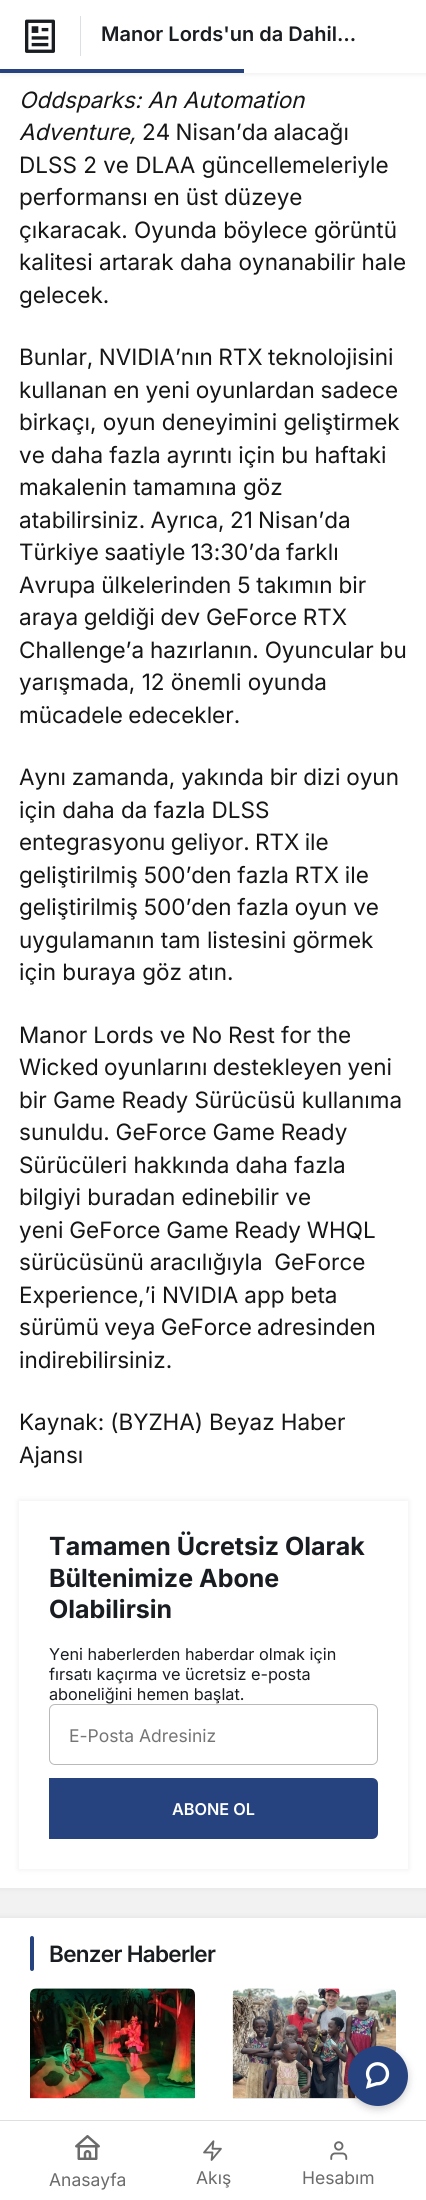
#include <cairo.h>
#include <math.h>
#include <stddef.h>


static void set_color(cairo_t *cr, unsigned color) {
    cairo_set_source_rgb(cr, (color >> 16) / 255.0, (color >> 8 & 255) / 255.0, (color & 255) / 255.0);
}

static void draw_text(cairo_t *cr, double x, double y, const char *s, const char *family, double size, int italic, int bold, unsigned color) {
    cairo_select_font_face(cr, family, italic ? CAIRO_FONT_SLANT_ITALIC : CAIRO_FONT_SLANT_NORMAL,
        bold ? CAIRO_FONT_WEIGHT_BOLD : CAIRO_FONT_WEIGHT_NORMAL);
    cairo_set_font_size(cr, size);
    set_color(cr, color);
    cairo_move_to(cr, x, y);
    cairo_show_text(cr, s);
}

static void draw_spaced(cairo_t *cr, double x, double y, const char *s, double letter, double word) {
    cairo_move_to(cr, x, y);
    while (*s) {
        char ch[5] = {0};
        int n = 0;
        do ch[n++] = *s++; while ((*s & 0xC0) == 0x80);
        cairo_show_text(cr, ch);
        cairo_rel_move_to(cr, letter + word * (*ch == ' '), 0);
    }
}

static void fill_rect(cairo_t *cr, double x, double y, double w, double h, unsigned color) {
    set_color(cr, color);
    cairo_rectangle(cr, x, y, w, h);
    cairo_fill(cr);
}

static void rounded_rect(cairo_t *cr, double x, double y, double w, double h, double r) {
    cairo_new_sub_path(cr);
    cairo_arc(cr, x + w - r, y + h - r, r, 0, M_PI / 2);
    cairo_arc(cr, x + r, y + h - r, r, M_PI / 2, M_PI);
    cairo_arc(cr, x + r, y + r, r, M_PI, 1.5 * M_PI);
    cairo_arc(cr, x + w - r, y + r, r, 1.5 * M_PI, 2 * M_PI);
    cairo_close_path(cr);
}

static void draw_shadow(cairo_t *cr, double x, double y, double w, double h, double r, double blur, double alpha) {
    cairo_push_group_with_content(cr, CAIRO_CONTENT_ALPHA);
    cairo_set_operator(cr, CAIRO_OPERATOR_SOURCE);
    for (int i = 15; i >= -15 && fmin(w, h) + blur * i / 3 > 0; i -= 2) {
        double e = blur * i / 6;
        cairo_set_source_rgba(cr, 0, 0, 0, alpha * erfc((i - 1) / 8.5) / 2);
        rounded_rect(cr, x - e, y - e, w + 2 * e, h + 2 * e, fmax(0, fmin(r + e + blur * .6, fmin(w, h) / 2 + e)));
        cairo_fill(cr);
    }
    cairo_pattern_t *soft = cairo_pop_group(cr);
    cairo_mask(cr, soft);
    cairo_pattern_destroy(soft);
}

static void draw_image(cairo_t *cr, const char *path, double x, double y, double w, double h) {
    cairo_surface_t *image = cairo_image_surface_create_from_png(path);
    cairo_save(cr);
    cairo_set_source_surface(cr, image, x, y);
    cairo_rectangle(cr, x, y, w, h);
    cairo_fill(cr);
    cairo_restore(cr);
    cairo_surface_destroy(image);
}

int main(void) {
    cairo_surface_t *surface = cairo_image_surface_create(CAIRO_FORMAT_RGB24, 426, 2200);
    cairo_t *cr = cairo_create(surface);
    cairo_font_options_t *options = cairo_font_options_create();
    cairo_font_options_set_hint_metrics(options, CAIRO_HINT_METRICS_OFF);
    cairo_font_options_set_hint_style(options, CAIRO_HINT_STYLE_NONE);
    cairo_set_font_options(cr, options);
    cairo_set_miter_limit(cr, 4);
    set_color(cr, 0xF2F2F3);
    cairo_paint(cr);
    set_color(cr, 0x32353D);
    draw_shadow(cr, 0, -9, 426, 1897, 0, 3, 0.1);
    fill_rect(cr, 0, 73, 426, 1815, 0xFFFFFF);
    set_color(cr, 0x000000);
    draw_shadow(cr, 1, 0, 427, 73, 0, 3, 0.1);
    fill_rect(cr, 0, 0, 426, 73, 0xFFFFFF);
    draw_image(cr, "assets/img1.png", 25, 19, 30, 34);
    fill_rect(cr, 80, 16, 1, 40, 0xDEDFE2);
    draw_text(cr, 101, 41, "Manor Lords'un da Dahil…", "Inter SemiBold", 20, 0, 0, 0x191C20);
    fill_rect(cr, 0, 69, 244, 4, 0x26437F);
    draw_text(cr, 19, 108, "Oddsparks: An Automation", "Inter", 22.5, 1, 0, 0x161616);
    draw_text(cr, 19, 140, "Adventure,", "Inter", 22.5, 1, 0, 0x161616);
    cairo_select_font_face(cr, "Inter", CAIRO_FONT_SLANT_NORMAL, CAIRO_FONT_WEIGHT_NORMAL);
    draw_spaced(cr, 142, 140, "24 Nisan’da alacağı", 0, -1);
    draw_text(cr, 19, 173, "DLSS 2 ve DLAA güncellemeleriyle", "Inter", 22.5, 0, 0, 0x161616);
    draw_spaced(cr, 19, 205, "performansı en üst düzeye", 0, -0.5);
    draw_text(cr, 19, 238, "çıkaracak. Oyunda böylece görüntü", "Inter", 22.5, 0, 0, 0x161616);
    draw_text(cr, 19, 270, "kalitesi artarak daha oynanabilir hale", "Inter", 22.5, 0, 0, 0x161616);
    draw_text(cr, 19, 303, "gelecek.", "Inter", 22.5, 0, 0, 0x161616);
    draw_spaced(cr, 19, 365, "Bunlar, NVIDIA’nın RTX teknolojisini", 0, -1);
    draw_spaced(cr, 19, 398, "kullanan en yeni oyunlardan sadece", 0, -0.5);
    draw_text(cr, 19, 430, "birkaçı, oyun deneyimini geliştirmek", "Inter", 22.5, 0, 0, 0x161616);
    draw_spaced(cr, 19, 463, "ve daha fazla ayrıntı için bu haftaki", 0, -0.25);
    draw_text(cr, 19, 495, "makalenin tamamına göz", "Inter", 22.5, 0, 0, 0x161616);
    draw_spaced(cr, 19, 528, "atabilirsiniz. Ayrıca, 21 Nisan’da", 0, -1);
    draw_spaced(cr, 19, 560, "Türkiye saatiyle 13:30’da farklı", 0, -1);
    draw_spaced(cr, 19, 593, "Avrupa ülkelerinden 5 takımın bir", 0, -0.5);
    draw_spaced(cr, 19, 625, "araya geldiği dev GeForce RTX", 0, -0.5);
    draw_spaced(cr, 19, 658, "Challenge’a hazırlanın. Oyuncular bu", 0, -0.5);
    draw_text(cr, 19, 690, "yarışmada, 12 önemli oyunda", "Inter", 22.5, 0, 0, 0x161616);
    draw_spaced(cr, 19, 723, "mücadele edecekler.", 0, -1);
    draw_spaced(cr, 19, 785, "Aynı zamanda, yakında bir dizi oyun", 0, -0.5);
    draw_text(cr, 19, 818, "için daha da fazla DLSS", "Inter", 22.5, 0, 0, 0x161616);
    draw_spaced(cr, 19, 850, "entegrasyonu geliyor. RTX ile", 0, -1);
    draw_spaced(cr, 19, 883, "geliştirilmiş 500’den fazla RTX ile", 0, -0.5);
    draw_spaced(cr, 19, 915, "geliştirilmiş 500’den fazla oyun ve", 0, -0.5);
    draw_text(cr, 19, 948, "uygulamanın tam listesini görmek", "Inter", 22.5, 0, 0, 0x161616);
    draw_text(cr, 19, 980, "için buraya göz atın.", "Inter", 22.5, 0, 0, 0x161616);
    draw_spaced(cr, 19, 1043, "Manor Lords ve No Rest for the", 0, -0.25);
    draw_spaced(cr, 19, 1075, "Wicked oyunlarını destekleyen yeni", 0, -1);
    draw_text(cr, 19, 1108, "bir Game Ready Sürücüsü kullanıma", "Inter", 22.5, 0, 0, 0x161616);
    draw_spaced(cr, 19, 1140, "sunuldu. GeForce Game Ready", 0, -0.5);
    draw_text(cr, 19, 1173, "Sürücüleri hakkında daha fazla", "Inter", 22.5, 0, 0, 0x161616);
    draw_text(cr, 19, 1205, "bilgiyi buradan edinebilir ve", "Inter", 22.5, 0, 0, 0x161616);
    draw_spaced(cr, 19, 1238, "yeni GeForce Game Ready WHQL", 0, -0.5);
    draw_spaced(cr, 19, 1270, "sürücüsünü aracılığıyla  GeForce", 0, -0.5);
    draw_spaced(cr, 19, 1303, "Experience,’i NVIDIA app beta", 0, -0.25);
    draw_spaced(cr, 19, 1335, "sürümü veya GeForce adresinden", 0, -1);
    draw_text(cr, 19, 1368, "indirebilirsiniz.", "Inter", 22.5, 0, 0, 0x161616);
    draw_spaced(cr, 19, 1430, "Kaynak: (BYZHA) Beyaz Haber", 0, -0.25);
    draw_text(cr, 19, 1463, "Ajansı", "Inter", 22.5, 0, 0, 0x161616);
    set_color(cr, 0x32353D);
    draw_shadow(cr, 19, 1501, 389, 368, 0, 3, 0.1);
    fill_rect(cr, 19, 1501, 389, 368, 0xFFFFFF);
    draw_text(cr, 49, 1555, "Tamamen Ücretsiz Olarak", "Inter", 25, 0, 1, 0x191C20);
    draw_text(cr, 49, 1587, "Bültenimize Abone", "Inter", 25, 0, 1, 0x191C20);
    draw_text(cr, 49, 1618, "Olabilirsin", "Inter", 25, 0, 1, 0x191C20);
    draw_text(cr, 49, 1660, "Yeni haberlerden haberdar olmak için", "Inter", 16.25, 0, 0, 0x191C20);
    draw_text(cr, 49, 1680, "fırsatı kaçırma ve ücretsiz e-posta", "Inter", 16.25, 0, 0, 0x191C20);
    draw_text(cr, 49, 1700, "aboneliğini hemen başlat.", "Inter", 16.25, 0, 0, 0x191C20);
    rounded_rect(cr, 49.5, 1704.5, 328, 60, 5.5);
    set_color(cr, 0xB9B9B9);
    cairo_set_line_width(cr, 1);
    cairo_stroke(cr);
    draw_text(cr, 69, 1742, "E-Posta Adresiniz", "Inter", 17.5, 0, 0, 0x757575);
    set_color(cr, 0x26437F);
    cairo_new_path(cr);
    cairo_move_to(cr, 49, 1778);
    cairo_line_to(cr, 372, 1778);
    cairo_curve_to(cr, 375.5, 1778, 378, 1780.5, 378, 1784);
    cairo_line_to(cr, 378, 1833);
    cairo_curve_to(cr, 378, 1836.5, 375.5, 1839, 372, 1839);
    cairo_line_to(cr, 49, 1839);
    cairo_close_path(cr);
    cairo_fill(cr);
    draw_text(cr, 172, 1815, "ABONE OL", "Inter SemiBold", 16.25, 0, 0, 0xFFFFFF);
    set_color(cr, 0x32353D);
    draw_shadow(cr, 0, 1918, 426, 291, 0, 3, 0.1);
    fill_rect(cr, 0, 1918, 426, 202, 0xFFFFFF);
    set_color(cr, 0x26437F);
    rounded_rect(cr, 30, 1936, 4, 35, 2);
    cairo_fill(cr);
    cairo_set_font_size(cr, 22.5);
    set_color(cr, 0x191C20);
    draw_spaced(cr, 49, 1962, "Benzer Haberler", -0.7, 0);
    cairo_save(cr);
    rounded_rect(cr, 30, 1989, 165, 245, 6);
    cairo_clip(cr);
    set_color(cr, 0xE6E6E6);
    cairo_new_path(cr);
    cairo_move_to(cr, 36, 1989);
    cairo_line_to(cr, 194, 1989);
    cairo_line_to(cr, 194, 2099);
    cairo_line_to(cr, 30, 2099);
    cairo_line_to(cr, 30, 1995);
    cairo_curve_to(cr, 30, 1991.5, 32.5, 1989, 36, 1989);
    cairo_close_path(cr);
    cairo_fill(cr);
    cairo_restore(cr);
    draw_image(cr, "assets/img2.png", 30, 1988, 165, 111);
    set_color(cr, 0xE6E6E6);
    cairo_new_path(cr);
    cairo_move_to(cr, 239, 1989);
    cairo_line_to(cr, 390, 1989);
    cairo_curve_to(cr, 393.5, 1989, 396, 1991.5, 396, 1995);
    cairo_line_to(cr, 396, 2099);
    cairo_line_to(cr, 233, 2099);
    cairo_line_to(cr, 233, 1995);
    cairo_curve_to(cr, 233, 1991.5, 235.5, 1989, 239, 1989);
    cairo_close_path(cr);
    cairo_fill(cr);
    draw_image(cr, "assets/img3.png", 232, 1988, 164, 111);
    fill_rect(cr, 0, 2121, 426, 79, 0xFFFFFF);
    fill_rect(cr, 0, 2120, 426, 1, 0xDEDFE2);
    set_color(cr, 0x000000);
    draw_shadow(cr, 348, 2049, 60, 60, 30, 4, 0.2);
    set_color(cr, 0x26437F);
    cairo_arc(cr, 378, 2076, 30, 0, 2 * M_PI);
    cairo_fill(cr);
    draw_image(cr, "assets/img4.png", 365, 2062, 25, 27);
    draw_image(cr, "assets/img5.png", 75, 2135, 25, 25);
    draw_text(cr, 49, 2186, "Anasayfa", "Inter", 17.5, 0, 0, 0x6B6B6B);
    draw_image(cr, "assets/img6.png", 203, 2140, 19, 21);
    draw_text(cr, 196, 2184, "Akış", "Inter", 17.5, 0, 0, 0x6B6B6B);
    draw_image(cr, "assets/img7.png", 330, 2141, 18, 19);
    draw_text(cr, 302, 2184, "Hesabım", "Inter", 17.5, 0, 0, 0x6B6B6B);
    cairo_surface_write_to_png(surface, "output.png");
    cairo_font_options_destroy(options);
    cairo_destroy(cr);
    cairo_surface_destroy(surface);
    return 0;
}
